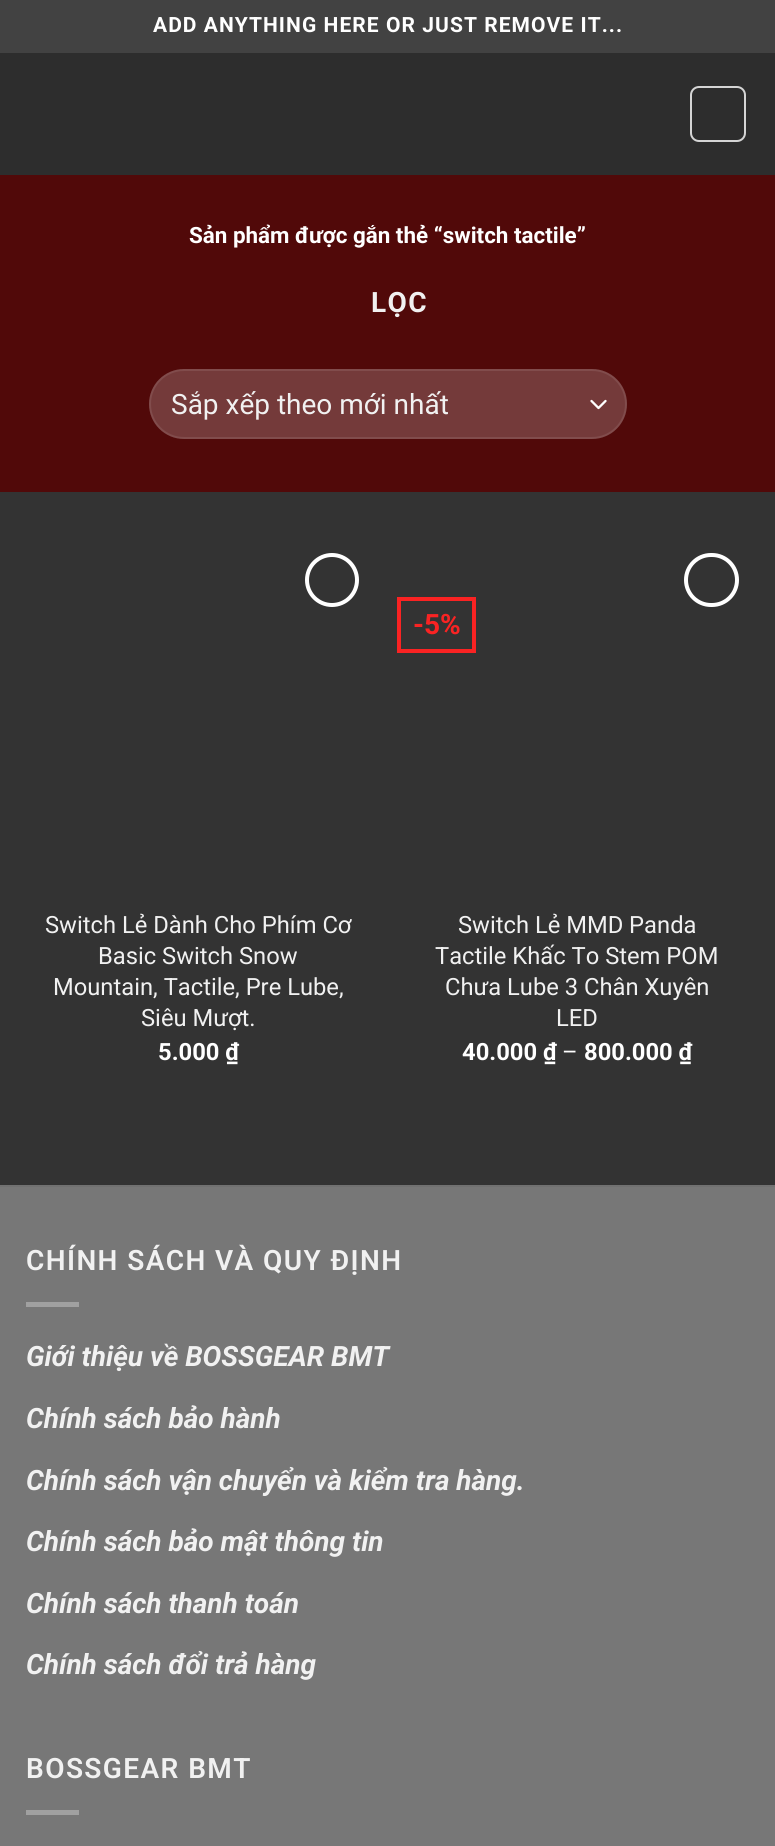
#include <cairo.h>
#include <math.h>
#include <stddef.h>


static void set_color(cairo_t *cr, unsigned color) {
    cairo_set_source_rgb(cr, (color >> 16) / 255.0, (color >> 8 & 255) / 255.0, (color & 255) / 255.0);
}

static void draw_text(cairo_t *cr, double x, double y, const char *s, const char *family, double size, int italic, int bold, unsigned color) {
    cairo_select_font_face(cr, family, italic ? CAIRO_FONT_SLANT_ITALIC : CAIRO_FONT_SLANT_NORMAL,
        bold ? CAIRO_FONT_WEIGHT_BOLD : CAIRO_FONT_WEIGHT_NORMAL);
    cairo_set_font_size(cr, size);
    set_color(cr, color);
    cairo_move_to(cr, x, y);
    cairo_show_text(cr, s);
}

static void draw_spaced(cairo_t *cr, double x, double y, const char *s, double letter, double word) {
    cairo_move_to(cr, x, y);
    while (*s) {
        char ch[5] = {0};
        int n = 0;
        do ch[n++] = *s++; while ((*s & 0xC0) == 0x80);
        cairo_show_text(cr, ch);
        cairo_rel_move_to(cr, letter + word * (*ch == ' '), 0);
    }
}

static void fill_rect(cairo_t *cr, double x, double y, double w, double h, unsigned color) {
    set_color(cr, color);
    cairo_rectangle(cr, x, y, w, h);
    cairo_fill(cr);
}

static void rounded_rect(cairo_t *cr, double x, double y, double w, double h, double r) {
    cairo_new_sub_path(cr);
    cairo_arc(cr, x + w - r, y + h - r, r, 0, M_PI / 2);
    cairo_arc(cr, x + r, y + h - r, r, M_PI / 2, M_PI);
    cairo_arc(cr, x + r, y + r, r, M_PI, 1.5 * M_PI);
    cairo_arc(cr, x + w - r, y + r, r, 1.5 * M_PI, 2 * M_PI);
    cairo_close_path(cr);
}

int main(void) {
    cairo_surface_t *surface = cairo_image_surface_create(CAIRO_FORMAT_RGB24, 775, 1846);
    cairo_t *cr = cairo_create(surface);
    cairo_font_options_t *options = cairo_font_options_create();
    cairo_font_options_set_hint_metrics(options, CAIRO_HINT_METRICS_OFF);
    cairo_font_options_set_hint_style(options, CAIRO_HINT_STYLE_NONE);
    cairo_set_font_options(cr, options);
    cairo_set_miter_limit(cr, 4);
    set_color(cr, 0x510909);
    cairo_paint(cr);
    fill_rect(cr, 0, 0, 775, 53, 0x424242);
    cairo_select_font_face(cr, "Roboto", CAIRO_FONT_SLANT_NORMAL, CAIRO_FONT_WEIGHT_BOLD);
    cairo_set_font_size(cr, 21);
    set_color(cr, 0xFFFFFF);
    draw_spaced(cr, 153, 32, "ADD ANYTHING HERE OR JUST REMOVE IT...", 1.05, 0);
    fill_rect(cr, 0, 53, 775, 122, 0x2D2D2D);
    rounded_rect(cr, 691, 87, 54, 54, 8);
    set_color(cr, 0xD5D5D5);
    cairo_stroke(cr);
    draw_text(cr, 189, 243, "Sản phẩm được gắn thẻ “switch tactile”", "Roboto", 22.4, 0, 1, 0xFFFFFF);
    cairo_set_font_size(cr, 28);
    set_color(cr, 0xF1F1F1);
    draw_spaced(cr, 371, 312, "LỌC", 1.4, 0);
    set_color(cr, 0x743A3A);
    rounded_rect(cr, 149, 369, 478, 70, 35);
    cairo_fill(cr);
    cairo_new_path(cr);
    cairo_move_to(cr, 591.5, 401);
    cairo_line_to(cr, 598.5, 408);
    cairo_line_to(cr, 605.5, 401);
    set_color(cr, 0xFFFFFF);
    cairo_set_line_width(cr, 2.3);
    cairo_set_line_cap(cr, CAIRO_LINE_CAP_ROUND);
    cairo_set_line_join(cr, CAIRO_LINE_JOIN_ROUND);
    cairo_stroke(cr);
    rounded_rect(cr, 150, 370, 476, 68, 34);
    cairo_set_source_rgba(cr, 1, 1, 1, 0.09);
    cairo_set_line_width(cr, 2);
    cairo_set_line_cap(cr, CAIRO_LINE_CAP_BUTT);
    cairo_set_line_join(cr, CAIRO_LINE_JOIN_MITER);
    cairo_stroke(cr);
    draw_text(cr, 171, 414, "Sắp xếp theo mới nhất", "Roboto", 28, 0, 0, 0xF1F1F1);
    fill_rect(cr, 0, 492, 775, 693, 0x333333);
    cairo_new_path(cr);
    cairo_arc(cr, 332, 580, 25, 0, 2 * M_PI);
    set_color(cr, 0xFFFFFF);
    cairo_set_line_width(cr, 4);
    cairo_stroke(cr);
    draw_text(cr, 45, 933, "Switch Lẻ Dành Cho Phím Cơ", "Roboto", 23.75, 0, 0, 0xF1F1F1);
    draw_text(cr, 98, 964, "Basic Switch Snow", "Roboto", 23.75, 0, 0, 0xF1F1F1);
    draw_text(cr, 53, 995, "Mountain, Tactile, Pre Lube,", "Roboto", 23.75, 0, 0, 0xF1F1F1);
    draw_text(cr, 141, 1026, "Siêu Mượt.", "Roboto", 23.75, 0, 0, 0xF1F1F1);
    draw_text(cr, 158, 1060, "5.000 ₫", "Roboto", 23.75, 0, 1, 0xFFFFFF);
    cairo_rectangle(cr, 399, 599, 75, 52);
    set_color(cr, 0xFA2323);
    cairo_stroke(cr);
    draw_text(cr, 413, 634, "-5%", "Roboto", 28, 0, 1, 0xFA2323);
    rounded_rect(cr, 686, 555, 51, 50, 25);
    set_color(cr, 0xFFFFFF);
    cairo_stroke(cr);
    draw_text(cr, 458, 933, "Switch Lẻ MMD Panda", "Roboto", 23.75, 0, 0, 0xF1F1F1);
    draw_text(cr, 435, 964, "Tactile Khấc To Stem POM", "Roboto", 23.75, 0, 0, 0xF1F1F1);
    draw_text(cr, 445, 995, "Chưa Lube 3 Chân Xuyên", "Roboto", 23.75, 0, 0, 0xF1F1F1);
    draw_text(cr, 556, 1026, "LED", "Roboto", 23.75, 0, 0, 0xF1F1F1);
    draw_text(cr, 462, 1060, "40.000 ₫", "Roboto", 23.75, 0, 1, 0xFFFFFF);
    draw_text(cr, 562, 1060, "–", "Roboto", 23.75, 0, 0, 0xFFFFFF);
    draw_text(cr, 584, 1060, "800.000 ₫", "Roboto", 23.75, 0, 1, 0xFFFFFF);
    fill_rect(cr, 0, 1187, 775, 659, 0x777777);
    fill_rect(cr, 0, 1185, 775, 2, 0x717171);
    cairo_select_font_face(cr, "Roboto SemiBold", CAIRO_FONT_SLANT_NORMAL, CAIRO_FONT_WEIGHT_NORMAL);
    cairo_set_font_size(cr, 28);
    set_color(cr, 0xF1F1F1);
    draw_spaced(cr, 26, 1270, "CHÍNH SÁCH VÀ QUY ĐỊNH", 1.4, 0);
    fill_rect(cr, 26, 1302, 53, 5, 0xA0A0A0);
    draw_text(cr, 26, 1366, "Giới thiệu về BOSSGEAR BMT", "Roboto", 28, 1, 1, 0xF1F1F1);
    draw_text(cr, 26, 1428, "Chính sách bảo hành", "Roboto", 28, 1, 1, 0xF1F1F1);
    draw_text(cr, 26, 1490, "Chính sách vận chuyển và kiểm tra hàng.", "Roboto", 28, 1, 1, 0xF1F1F1);
    draw_text(cr, 26, 1551, "Chính sách bảo mật thông tin", "Roboto", 28, 1, 1, 0xF1F1F1);
    draw_text(cr, 26, 1613, "Chính sách thanh toán", "Roboto", 28, 1, 1, 0xF1F1F1);
    draw_text(cr, 26, 1674, "Chính sách đổi trả hàng", "Roboto", 28, 1, 1, 0xF1F1F1);
    cairo_select_font_face(cr, "Roboto SemiBold", CAIRO_FONT_SLANT_NORMAL, CAIRO_FONT_WEIGHT_NORMAL);
    draw_spaced(cr, 26, 1778, "BOSSGEAR BMT", 1.4, 0);
    fill_rect(cr, 26, 1810, 53, 5, 0xA0A0A0);
    cairo_surface_write_to_png(surface, "output.png");
    cairo_font_options_destroy(options);
    cairo_destroy(cr);
    cairo_surface_destroy(surface);
    return 0;
}
